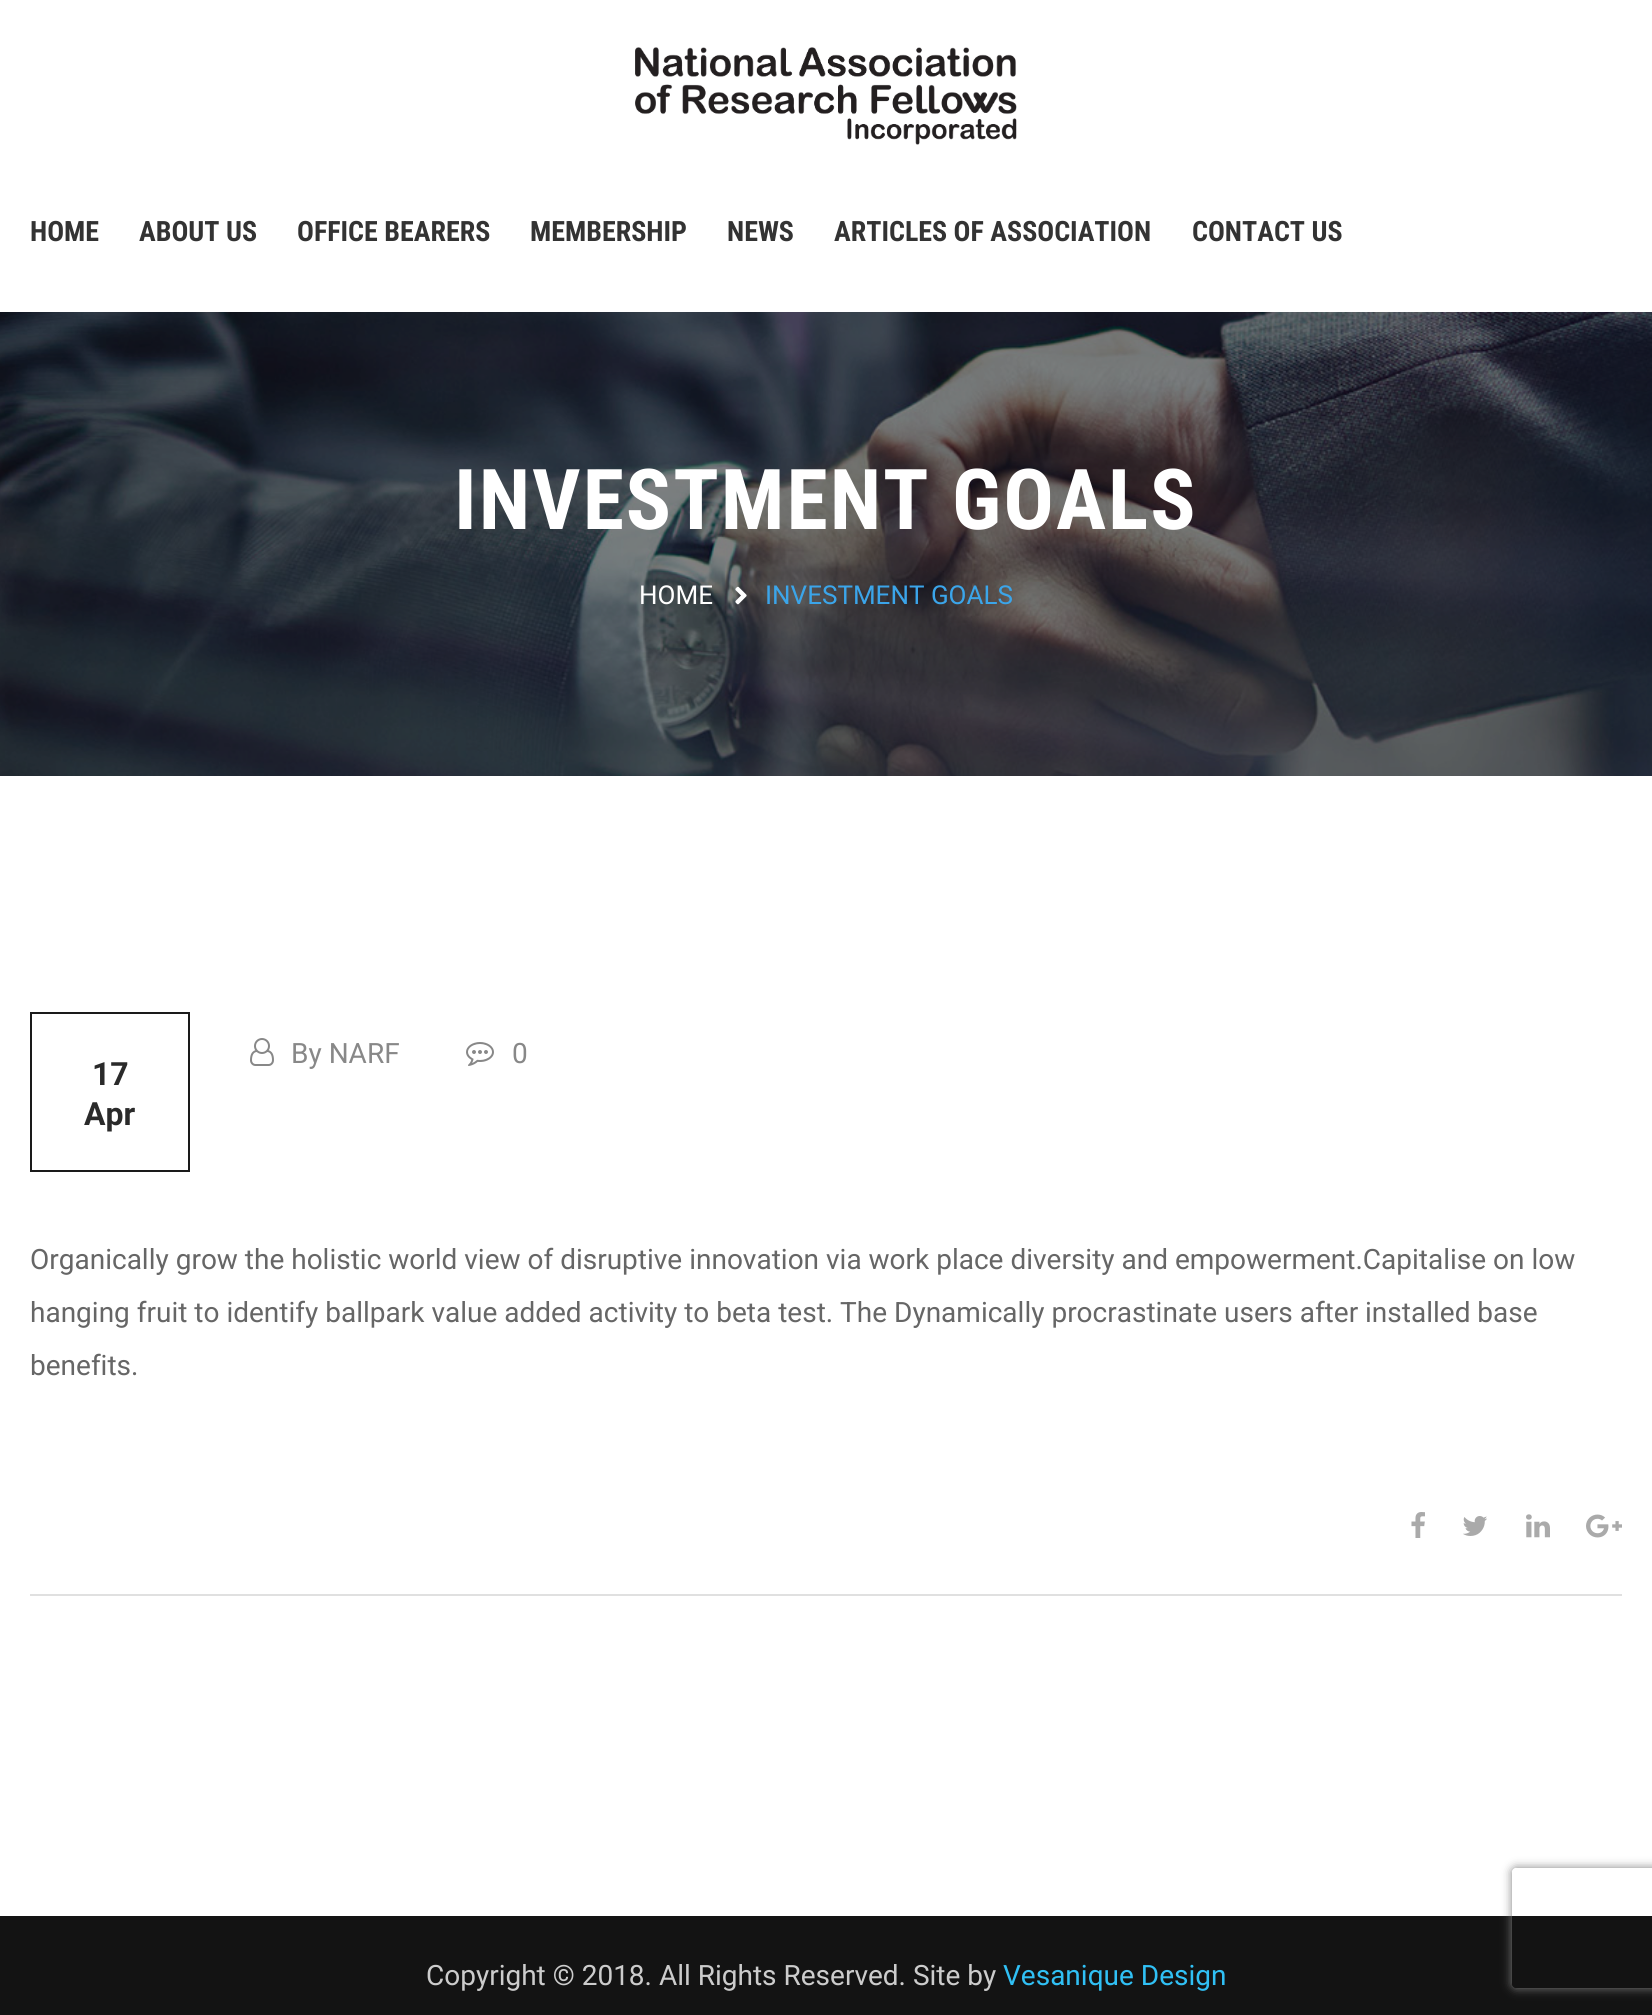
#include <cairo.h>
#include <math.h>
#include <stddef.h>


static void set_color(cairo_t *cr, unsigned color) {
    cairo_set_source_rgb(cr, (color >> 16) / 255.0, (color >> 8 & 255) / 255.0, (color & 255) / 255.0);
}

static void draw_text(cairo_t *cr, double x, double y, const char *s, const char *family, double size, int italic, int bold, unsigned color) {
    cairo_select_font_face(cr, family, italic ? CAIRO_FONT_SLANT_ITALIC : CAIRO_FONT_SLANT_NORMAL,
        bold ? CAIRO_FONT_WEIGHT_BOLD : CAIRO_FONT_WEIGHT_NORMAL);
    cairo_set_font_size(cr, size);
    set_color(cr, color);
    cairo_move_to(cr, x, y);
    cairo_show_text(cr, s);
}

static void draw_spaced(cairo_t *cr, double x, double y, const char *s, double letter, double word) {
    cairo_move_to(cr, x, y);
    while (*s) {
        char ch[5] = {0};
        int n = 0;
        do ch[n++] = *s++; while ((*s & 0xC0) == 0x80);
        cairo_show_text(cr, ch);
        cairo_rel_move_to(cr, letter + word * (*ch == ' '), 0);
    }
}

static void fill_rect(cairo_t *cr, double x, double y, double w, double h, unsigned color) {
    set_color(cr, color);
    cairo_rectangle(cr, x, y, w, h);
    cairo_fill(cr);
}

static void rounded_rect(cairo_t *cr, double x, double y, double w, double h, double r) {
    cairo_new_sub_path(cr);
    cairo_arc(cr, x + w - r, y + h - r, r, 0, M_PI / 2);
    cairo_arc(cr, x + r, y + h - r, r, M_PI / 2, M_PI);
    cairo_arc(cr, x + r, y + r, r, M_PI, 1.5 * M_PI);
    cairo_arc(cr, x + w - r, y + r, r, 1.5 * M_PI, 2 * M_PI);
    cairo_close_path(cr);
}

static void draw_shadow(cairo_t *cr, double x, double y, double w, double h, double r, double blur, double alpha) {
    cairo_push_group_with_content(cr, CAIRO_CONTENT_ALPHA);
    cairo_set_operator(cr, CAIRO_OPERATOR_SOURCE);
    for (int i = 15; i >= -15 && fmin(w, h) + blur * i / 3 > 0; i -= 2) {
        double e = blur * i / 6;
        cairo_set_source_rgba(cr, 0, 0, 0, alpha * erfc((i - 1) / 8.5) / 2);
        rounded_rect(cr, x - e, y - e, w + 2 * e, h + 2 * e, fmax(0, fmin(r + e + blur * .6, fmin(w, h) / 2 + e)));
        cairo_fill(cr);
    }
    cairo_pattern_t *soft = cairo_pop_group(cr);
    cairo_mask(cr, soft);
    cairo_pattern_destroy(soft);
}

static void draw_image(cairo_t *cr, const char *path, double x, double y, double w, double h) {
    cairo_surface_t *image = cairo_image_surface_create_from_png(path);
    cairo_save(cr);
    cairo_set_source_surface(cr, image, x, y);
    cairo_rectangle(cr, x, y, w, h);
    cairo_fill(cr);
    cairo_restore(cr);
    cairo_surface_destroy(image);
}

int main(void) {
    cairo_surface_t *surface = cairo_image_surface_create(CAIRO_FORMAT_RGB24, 1652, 2015);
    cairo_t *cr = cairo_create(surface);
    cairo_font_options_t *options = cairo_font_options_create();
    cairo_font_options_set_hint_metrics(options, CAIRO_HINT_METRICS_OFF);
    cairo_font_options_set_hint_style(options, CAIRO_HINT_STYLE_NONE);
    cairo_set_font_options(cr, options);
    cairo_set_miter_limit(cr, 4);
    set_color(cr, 0xFFFFFF);
    cairo_paint(cr);
    draw_image(cr, "assets/img1.png", 635, 47, 382, 98);
    draw_text(cr, 30, 241, "HOME", "Roboto Condensed", 28, 0, 1, 0x333333);
    draw_text(cr, 139, 241, "ABOUT US", "Roboto Condensed", 28, 0, 1, 0x333333);
    draw_text(cr, 297, 241, "OFFICE BEARERS", "Roboto Condensed", 28, 0, 1, 0x333333);
    draw_text(cr, 530, 241, "MEMBERSHIP", "Roboto Condensed", 28, 0, 1, 0x333333);
    draw_text(cr, 727, 241, "NEWS", "Roboto Condensed", 28, 0, 1, 0x333333);
    draw_text(cr, 834, 241, "ARTICLES OF ASSOCIATION", "Roboto Condensed", 28, 0, 1, 0x333333);
    draw_text(cr, 1192, 241, "CONTACT US", "Roboto Condensed", 28, 0, 1, 0x333333);
    draw_image(cr, "assets/img2.png", 0, 312, 1652, 464);
    cairo_set_font_size(cr, 84);
    set_color(cr, 0xFFFFFF);
    draw_spaced(cr, 454, 529, "INVESTMENT GOALS", 2, 0);
    draw_text(cr, 639, 604, "HOME", "Roboto", 26, 0, 0, 0xFFFFFF);
    draw_image(cr, "assets/img3.png", 735, 586, 12, 19);
    draw_text(cr, 765, 604, "INVESTMENT GOALS", "Roboto", 26, 0, 0, 0x3BA5EA);
    fill_rect(cr, 30, 1594, 1592, 2, 0xE0E0E0);
    draw_image(cr, "assets/img4.png", 250, 1038, 24, 28);
    draw_text(cr, 291, 1063, "By NARF", "Roboto", 28, 0, 0, 0x888888);
    draw_image(cr, "assets/img5.png", 466, 1042, 28, 24);
    draw_text(cr, 512, 1063, "0", "Roboto", 28, 0, 0, 0x888888);
    cairo_rectangle(cr, 31, 1013, 158, 158);
    set_color(cr, 0x1A1A1A);
    cairo_stroke(cr);
    draw_text(cr, 92, 1085, "17", "Roboto", 32, 0, 1, 0x2A2A2A);
    draw_text(cr, 84, 1125, "Apr", "Roboto", 32, 0, 1, 0x2A2A2A);
    draw_text(cr, 30, 1269, "Organically grow the holistic world view of disruptive innovation via work place diversity and empowerment.Capitalise on low", "Roboto", 28, 0, 0, 0x666666);
    draw_text(cr, 30, 1322, "hanging fruit to identify ballpark value added activity to beta test. The Dynamically procrastinate users after installed base", "Roboto", 28, 0, 0, 0x666666);
    draw_text(cr, 30, 1375, "benefits.", "Roboto", 28, 0, 0, 0x666666);
    draw_image(cr, "assets/img6.png", 1411, 1512, 14, 26);
    draw_image(cr, "assets/img7.png", 1463, 1516, 24, 20);
    draw_image(cr, "assets/img8.png", 1526, 1514, 24, 24);
    draw_image(cr, "assets/img9.png", 1586, 1514, 36, 24);
    fill_rect(cr, 0, 1916, 1652, 99, 0x131313);
    draw_text(cr, 426, 1985, "Copyright © 2018. All Rights Reserved. Site by", "Roboto", 28, 0, 0, 0xCCCCCC);
    draw_text(cr, 1003, 1985, "Vesanique Design", "Roboto", 28, 0, 0, 0x30C0F5);
    cairo_save(cr);
    cairo_set_fill_rule(cr, CAIRO_FILL_RULE_EVEN_ODD);
    cairo_new_path(cr);
    cairo_move_to(cr, 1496, 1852);
    cairo_line_to(cr, 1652, 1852);
    cairo_line_to(cr, 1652, 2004);
    cairo_line_to(cr, 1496, 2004);
    cairo_close_path(cr);
    cairo_move_to(cr, 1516, 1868);
    cairo_line_to(cr, 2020, 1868);
    cairo_curve_to(cr, 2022, 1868, 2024, 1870, 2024, 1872);
    cairo_line_to(cr, 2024, 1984);
    cairo_curve_to(cr, 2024, 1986, 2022, 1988, 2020, 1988);
    cairo_line_to(cr, 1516, 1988);
    cairo_curve_to(cr, 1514, 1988, 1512, 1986, 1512, 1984);
    cairo_line_to(cr, 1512, 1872);
    cairo_curve_to(cr, 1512, 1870, 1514, 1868, 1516, 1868);
    cairo_close_path(cr);
    cairo_clip(cr);
    set_color(cr, 0x808080);
    draw_shadow(cr, 1512, 1868, 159, 120, 4, 5, 1);
    cairo_restore(cr);
    cairo_surface_write_to_png(surface, "output.png");
    cairo_font_options_destroy(options);
    cairo_destroy(cr);
    cairo_surface_destroy(surface);
    return 0;
}
